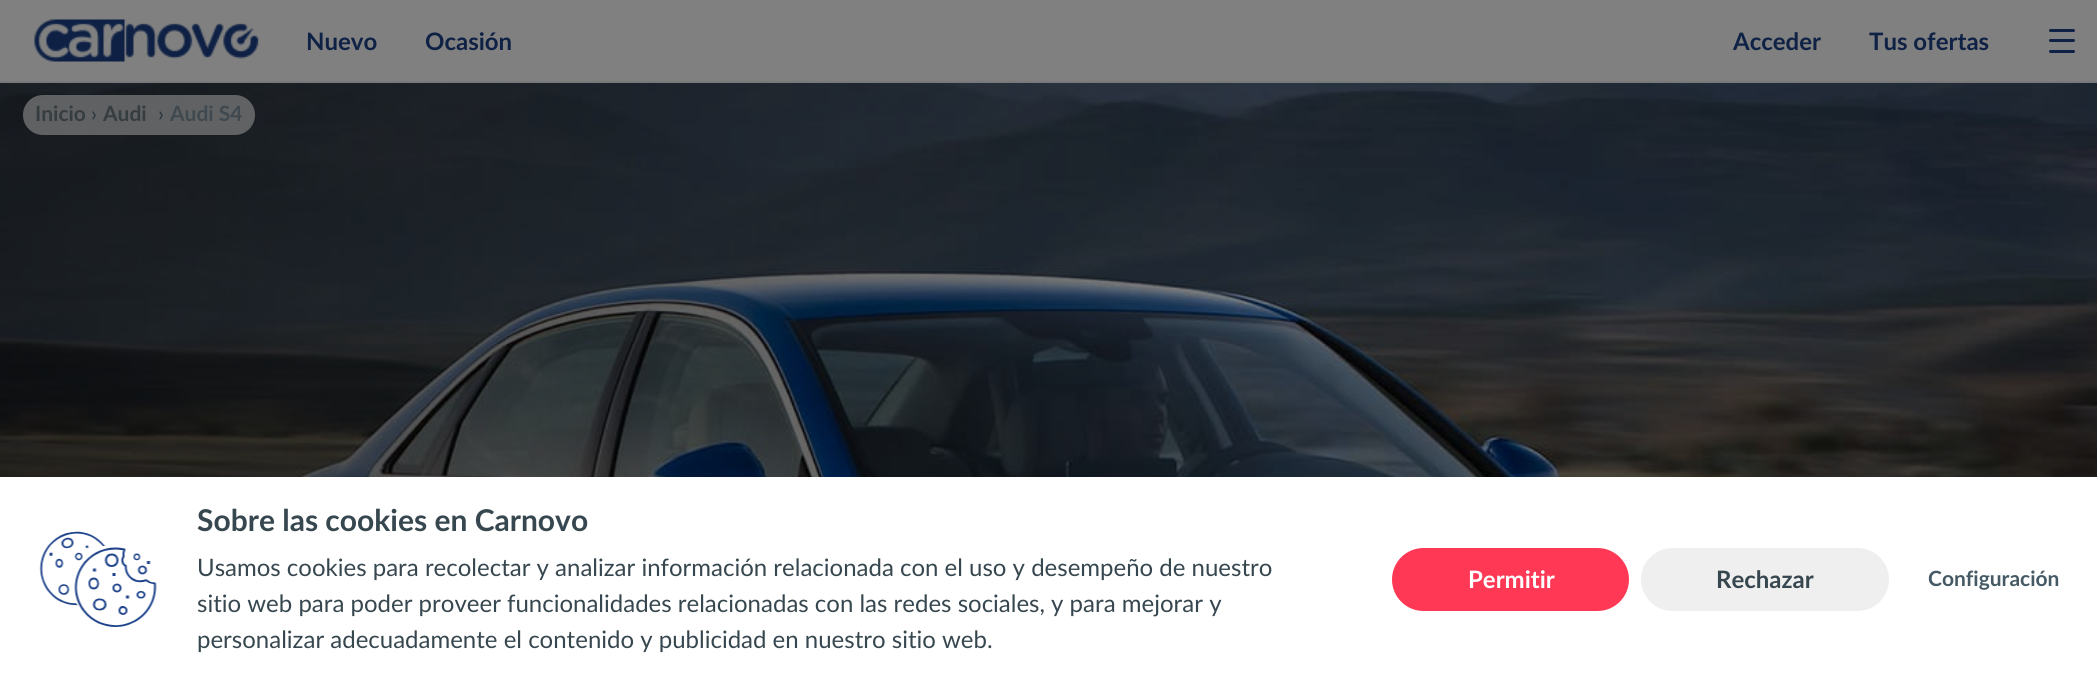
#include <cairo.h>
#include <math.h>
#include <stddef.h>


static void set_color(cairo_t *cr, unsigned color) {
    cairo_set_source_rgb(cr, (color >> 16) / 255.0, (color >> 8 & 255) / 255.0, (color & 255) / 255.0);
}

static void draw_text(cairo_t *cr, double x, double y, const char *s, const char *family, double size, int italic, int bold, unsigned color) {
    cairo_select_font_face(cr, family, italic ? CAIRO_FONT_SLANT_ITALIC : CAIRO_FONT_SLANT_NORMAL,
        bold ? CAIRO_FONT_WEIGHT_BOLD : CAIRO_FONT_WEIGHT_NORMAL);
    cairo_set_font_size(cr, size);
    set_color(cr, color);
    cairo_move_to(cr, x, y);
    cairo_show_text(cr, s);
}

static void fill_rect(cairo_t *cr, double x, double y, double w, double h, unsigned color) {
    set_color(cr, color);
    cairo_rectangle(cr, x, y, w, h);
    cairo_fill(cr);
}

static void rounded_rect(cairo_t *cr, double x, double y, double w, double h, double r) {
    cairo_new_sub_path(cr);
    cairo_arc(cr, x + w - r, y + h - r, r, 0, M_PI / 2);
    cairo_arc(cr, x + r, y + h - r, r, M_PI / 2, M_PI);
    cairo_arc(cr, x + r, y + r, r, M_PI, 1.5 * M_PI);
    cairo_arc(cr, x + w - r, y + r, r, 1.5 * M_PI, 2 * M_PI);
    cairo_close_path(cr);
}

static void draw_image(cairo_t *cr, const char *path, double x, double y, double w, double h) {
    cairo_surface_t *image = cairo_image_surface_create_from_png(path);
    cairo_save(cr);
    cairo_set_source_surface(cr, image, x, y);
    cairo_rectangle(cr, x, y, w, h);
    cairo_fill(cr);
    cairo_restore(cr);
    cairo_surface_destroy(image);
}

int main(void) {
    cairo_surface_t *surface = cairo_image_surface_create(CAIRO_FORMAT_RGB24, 2097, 681);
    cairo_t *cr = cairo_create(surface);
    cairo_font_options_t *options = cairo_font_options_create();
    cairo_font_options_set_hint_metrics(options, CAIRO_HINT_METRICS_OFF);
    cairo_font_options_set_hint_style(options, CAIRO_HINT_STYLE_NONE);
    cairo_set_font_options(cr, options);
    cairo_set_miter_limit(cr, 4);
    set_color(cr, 0xFFFFFF);
    cairo_paint(cr);
    fill_rect(cr, 0, 0, 2097, 81, 0x808080);
    fill_rect(cr, 0, 81, 2097, 2, 0x78797A);
    draw_image(cr, "assets/img1.png", 34, 19, 225, 43);
    draw_text(cr, 306, 50, "Nuevo", "Lato", 24, 0, 1, 0x0F2145);
    draw_text(cr, 425, 50, "Ocasión", "Lato", 24, 0, 1, 0x0F2145);
    draw_text(cr, 1733, 50, "Acceder", "Lato", 24, 0, 1, 0x0F2145);
    draw_text(cr, 1869, 50, "Tus ofertas", "Lato", 24, 0, 1, 0x0F2145);
    rounded_rect(cr, 2049, 29, 26, 3, 1.5);
    cairo_fill(cr);
    rounded_rect(cr, 2049, 39, 26, 3, 1.5);
    cairo_fill(cr);
    rounded_rect(cr, 2049, 50, 26, 3, 1.5);
    cairo_fill(cr);
    draw_image(cr, "assets/img2.png", 0, 83, 2097, 394);
    cairo_set_source_rgba(cr, 0.502, 0.502, 0.502, 0.7);
    rounded_rect(cr, 23, 95, 232, 40, 20);
    cairo_fill(cr);
    draw_text(cr, 35, 121, "Inicio", "Lato", 21, 0, 1, 0x353D41);
    draw_text(cr, 91, 121, "›", "Lato", 21, 0, 0, 0x29343B);
    draw_text(cr, 103, 121, "Audi", "Lato", 21, 0, 1, 0x353D41);
    draw_text(cr, 158, 121, "›", "Lato", 21, 0, 0, 0x29343B);
    draw_text(cr, 170, 121, "Audi S4", "Lato", 21, 0, 1, 0x3F494F);
    draw_image(cr, "assets/img3.png", 39, 531, 118, 96);
    draw_text(cr, 197, 531, "Sobre las cookies en Carnovo", "Lato", 30, 0, 1, 0x37474F);
    draw_text(cr, 197, 576, "Usamos cookies para recolectar y analizar información relacionada con el uso y desempeño de nuestro", "Lato", 24, 0, 0, 0x37474F);
    draw_text(cr, 197, 612, "sitio web para poder proveer funcionalidades relacionadas con las redes sociales, y para mejorar y", "Lato", 24, 0, 0, 0x37474F);
    draw_text(cr, 197, 648, "personalizar adecuadamente el contenido y publicidad en nuestro sitio web.", "Lato", 24, 0, 0, 0x37474F);
    set_color(cr, 0xFF3955);
    rounded_rect(cr, 1393.5, 549.5, 234, 60, 30);
    cairo_fill_preserve(cr);
    cairo_set_line_width(cr, 3);
    cairo_stroke(cr);
    draw_text(cr, 1468, 588, "Permitir", "Lato", 24, 0, 1, 0xFFFFFF);
    set_color(cr, 0xEFEFEF);
    rounded_rect(cr, 1641, 548, 248, 63, 31.5);
    cairo_fill(cr);
    draw_text(cr, 1716, 588, "Rechazar", "Lato", 24, 0, 1, 0x37474F);
    draw_text(cr, 1928, 586, "Configuración", "Lato", 21, 0, 1, 0x455A64);
    cairo_surface_write_to_png(surface, "output.png");
    cairo_font_options_destroy(options);
    cairo_destroy(cr);
    cairo_surface_destroy(surface);
    return 0;
}
